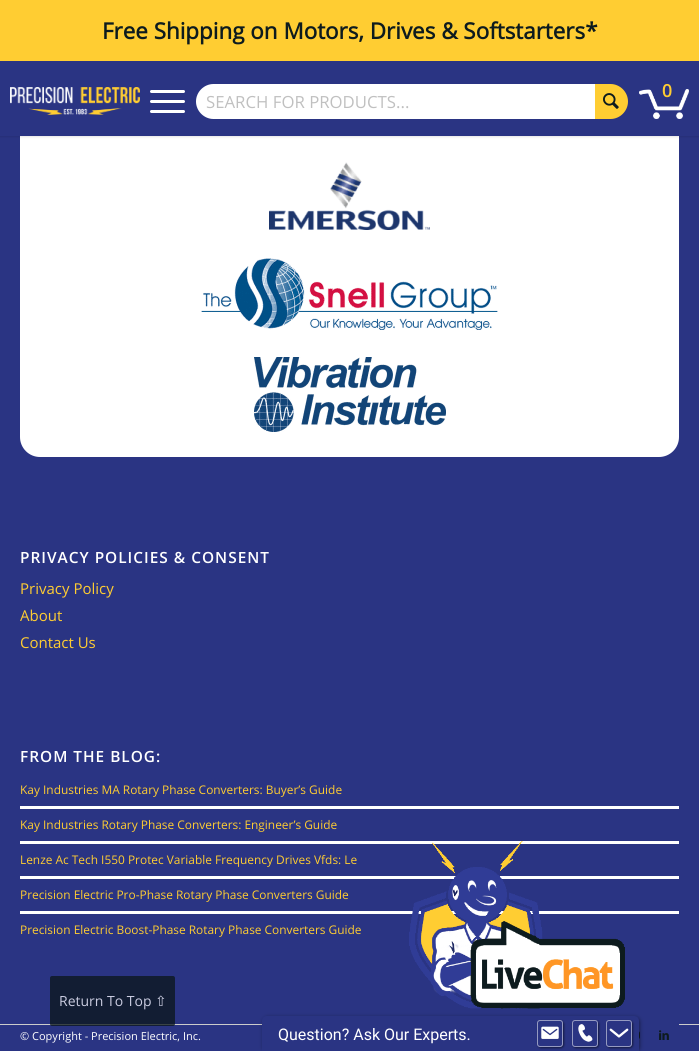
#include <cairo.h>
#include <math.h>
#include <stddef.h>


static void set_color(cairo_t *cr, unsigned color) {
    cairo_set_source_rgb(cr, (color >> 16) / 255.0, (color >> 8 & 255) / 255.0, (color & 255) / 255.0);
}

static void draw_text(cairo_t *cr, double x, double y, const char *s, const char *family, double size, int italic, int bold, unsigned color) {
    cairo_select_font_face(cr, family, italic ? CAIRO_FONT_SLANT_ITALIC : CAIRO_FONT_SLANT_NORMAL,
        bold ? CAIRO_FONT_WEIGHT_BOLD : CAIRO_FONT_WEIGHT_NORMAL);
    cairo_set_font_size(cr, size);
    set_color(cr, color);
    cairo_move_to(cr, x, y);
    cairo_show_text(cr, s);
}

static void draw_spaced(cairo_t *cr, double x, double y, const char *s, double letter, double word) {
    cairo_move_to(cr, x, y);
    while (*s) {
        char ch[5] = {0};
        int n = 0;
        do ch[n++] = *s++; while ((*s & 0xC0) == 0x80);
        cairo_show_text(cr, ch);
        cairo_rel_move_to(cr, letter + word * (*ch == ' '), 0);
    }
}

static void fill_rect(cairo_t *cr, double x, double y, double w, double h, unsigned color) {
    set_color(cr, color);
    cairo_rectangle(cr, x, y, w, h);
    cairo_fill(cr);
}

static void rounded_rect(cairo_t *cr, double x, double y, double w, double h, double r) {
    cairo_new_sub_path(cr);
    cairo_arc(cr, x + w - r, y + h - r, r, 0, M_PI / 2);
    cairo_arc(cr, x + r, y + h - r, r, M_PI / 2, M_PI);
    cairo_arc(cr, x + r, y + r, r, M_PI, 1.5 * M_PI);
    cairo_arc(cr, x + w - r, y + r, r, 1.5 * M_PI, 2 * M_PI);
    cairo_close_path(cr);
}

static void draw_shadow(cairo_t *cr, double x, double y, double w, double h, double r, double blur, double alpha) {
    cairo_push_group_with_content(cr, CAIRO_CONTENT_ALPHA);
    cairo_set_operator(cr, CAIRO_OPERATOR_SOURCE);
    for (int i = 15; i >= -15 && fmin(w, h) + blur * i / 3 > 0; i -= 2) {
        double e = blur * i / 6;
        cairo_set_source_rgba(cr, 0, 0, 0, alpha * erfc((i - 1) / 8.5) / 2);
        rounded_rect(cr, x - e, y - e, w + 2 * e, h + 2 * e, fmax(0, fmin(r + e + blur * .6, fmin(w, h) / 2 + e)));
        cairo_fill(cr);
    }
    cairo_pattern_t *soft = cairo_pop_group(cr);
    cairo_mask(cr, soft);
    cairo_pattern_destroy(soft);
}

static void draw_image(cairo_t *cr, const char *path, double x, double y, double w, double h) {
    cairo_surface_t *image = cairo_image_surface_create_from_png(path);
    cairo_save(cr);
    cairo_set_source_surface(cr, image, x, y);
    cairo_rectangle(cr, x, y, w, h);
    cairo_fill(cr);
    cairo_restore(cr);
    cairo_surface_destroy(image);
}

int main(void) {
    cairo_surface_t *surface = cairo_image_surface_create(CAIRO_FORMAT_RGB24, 699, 1051);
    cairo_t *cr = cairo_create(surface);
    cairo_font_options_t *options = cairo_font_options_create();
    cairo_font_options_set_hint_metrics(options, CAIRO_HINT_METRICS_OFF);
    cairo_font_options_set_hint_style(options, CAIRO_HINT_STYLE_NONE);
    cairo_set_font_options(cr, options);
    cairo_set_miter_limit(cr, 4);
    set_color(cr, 0x2A3483);
    cairo_paint(cr);
    set_color(cr, 0xFFFFFF);
    rounded_rect(cr, 20, -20, 659, 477, 20);
    cairo_fill(cr);
    set_color(cr, 0x000000);
    draw_shadow(cr, -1, -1, 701, 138, 0, 1, 0.1);
    fill_rect(cr, 0, 0, 699, 61, 0xFFCD32);
    draw_text(cr, 102, 39, "Free Shipping on Motors, Drives & Softstarters*", "Open Sans", 22.4, 0, 1, 0x0D1B1E);
    fill_rect(cr, 0, 61, 699, 75, 0x2A3483);
    draw_image(cr, "assets/img1.png", 10, 87, 130, 28);
    set_color(cr, 0xFFFFFF);
    rounded_rect(cr, 150, 100, 35, 3, 1.5);
    cairo_fill(cr);
    rounded_rect(cr, 150, 90, 35, 3, 1.5);
    cairo_fill(cr);
    rounded_rect(cr, 150, 110, 35, 3, 1.5);
    cairo_fill(cr);
    set_color(cr, 0xFFCD32);
    cairo_new_path(cr);
    cairo_move_to(cr, 593, 84);
    cairo_line_to(cr, 610.5, 84);
    cairo_curve_to(cr, 620, 84, 628, 92, 628, 101.5);
    cairo_curve_to(cr, 628, 111, 620, 119, 610.5, 119);
    cairo_line_to(cr, 593, 119);
    cairo_close_path(cr);
    cairo_fill(cr);
    set_color(cr, 0xFFFFFF);
    cairo_new_path(cr);
    cairo_move_to(cr, 213.5, 84);
    cairo_line_to(cr, 595, 84);
    cairo_line_to(cr, 595, 119);
    cairo_line_to(cr, 213.5, 119);
    cairo_curve_to(cr, 204, 119, 196, 111, 196, 101.5);
    cairo_curve_to(cr, 196, 92, 204, 84, 213.5, 84);
    cairo_close_path(cr);
    cairo_fill(cr);
    draw_text(cr, 206, 108, "SEARCH FOR PRODUCTS...", "Open Sans", 16.75, 0, 0, 0xC0C0C0);
    draw_image(cr, "assets/img2.png", 603, 93, 16, 16);
    draw_image(cr, "assets/img3.png", 639, 89, 50, 30);
    draw_text(cr, 662, 97, "0", "Open Sans SemiBold", 18, 0, 0, 0xFFCD32);
    draw_image(cr, "assets/img4.png", 269, 162, 161, 68);
    draw_image(cr, "assets/img5.png", 201, 258, 297, 72);
    draw_image(cr, "assets/img6.png", 254, 357, 192, 75);
    cairo_set_font_size(cr, 15.4);
    set_color(cr, 0xFFFFFF);
    draw_spaced(cr, 20, 563, "PRIVACY POLICIES & CONSENT", 1, 0);
    draw_text(cr, 20, 594, "Privacy Policy", "Open Sans", 15, 0, 0, 0xFFCD32);
    draw_text(cr, 20, 621, "About", "Open Sans", 15, 0, 0, 0xFFCD32);
    draw_text(cr, 20, 648, "Contact Us", "Open Sans", 15, 0, 0, 0xFFCD32);
    cairo_select_font_face(cr, "Open Sans SemiBold", CAIRO_FONT_SLANT_NORMAL, CAIRO_FONT_WEIGHT_NORMAL);
    cairo_set_font_size(cr, 15.4);
    set_color(cr, 0xFFFFFF);
    draw_spaced(cr, 20, 762, "FROM THE BLOG:", 1, 0);
    draw_text(cr, 20, 794, "Kay Industries MA Rotary Phase Converters: Buyer’s Guide", "Open Sans", 11.9, 0, 0, 0xFFCD32);
    fill_rect(cr, 20, 806, 659, 3, 0xFFFFFF);
    draw_text(cr, 20, 829, "Kay Industries Rotary Phase Converters: Engineer’s Guide", "Open Sans", 11.9, 0, 0, 0xFFCD32);
    fill_rect(cr, 20, 841, 659, 3, 0xFFFFFF);
    draw_text(cr, 20, 864, "Lenze Ac Tech I550 Protec Variable Frequency Drives Vfds: Le", "Open Sans", 11.9, 0, 0, 0xFFCD32);
    fill_rect(cr, 20, 876, 659, 3, 0xFFFFFF);
    draw_text(cr, 20, 899, "Precision Electric Pro-Phase Rotary Phase Converters Guide", "Open Sans", 11.9, 0, 0, 0xFFCD32);
    fill_rect(cr, 20, 911, 659, 3, 0xFFFFFF);
    draw_text(cr, 20, 934, "Precision Electric Boost-Phase Rotary Phase Converters Guide", "Open Sans", 11.9, 0, 0, 0xFFCD32);
    fill_rect(cr, 0, 1024, 699, 1, 0xCCCCCC);
    draw_text(cr, 20, 1040, "© Copyright - Precision Electric, Inc.", "Open Sans", 11, 0, 0, 0xFFFFFF);
    fill_rect(cr, 559, 1024, 120, 1, 0x2A3483);
    draw_image(cr, "assets/img7.png", 639, 1031, 1, 8);
    draw_image(cr, "assets/img8.png", 659, 1030, 10, 10);
    cairo_set_source_rgba(cr, 0.039, 0.086, 0.094, 0.75);
    rounded_rect(cr, 50, 976, 125, 50, 2);
    cairo_fill(cr);
    draw_text(cr, 59, 1006, "Return To Top", "Open Sans", 14, 0, 0, 0xCACCE0);
    draw_text(cr, 155, 1006, "⇧", "DejaVu Sans", 14, 0, 0, 0xCACCE0);
    set_color(cr, 0x000000);
    draw_shadow(cr, 263, 1017, 377, 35, 5, 2, 0.4);
    draw_image(cr, "assets/img9.png", 409, 841, 216, 168);
    set_color(cr, 0x2A3483);
    cairo_new_path(cr);
    cairo_move_to(cr, 267, 1016);
    cairo_line_to(cr, 634, 1016);
    cairo_curve_to(cr, 637, 1016, 639, 1018, 639, 1021);
    cairo_line_to(cr, 639, 1051);
    cairo_line_to(cr, 262, 1051);
    cairo_line_to(cr, 262, 1021);
    cairo_curve_to(cr, 262, 1018, 264, 1016, 267, 1016);
    cairo_close_path(cr);
    cairo_fill(cr);
    draw_text(cr, 278, 1040, "Question? Ask Our Experts.", "Roboto", 16, 0, 0, 0xFFFFFF);
    cairo_save(cr);
    cairo_set_fill_rule(cr, CAIRO_FILL_RULE_EVEN_ODD);
    cairo_new_path(cr);
    cairo_move_to(cr, 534, 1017);
    cairo_line_to(cr, 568, 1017);
    cairo_line_to(cr, 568, 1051);
    cairo_line_to(cr, 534, 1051);
    cairo_close_path(cr);
    cairo_move_to(cr, 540, 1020);
    cairo_line_to(cr, 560, 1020);
    cairo_curve_to(cr, 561.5, 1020, 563, 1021.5, 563, 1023);
    cairo_line_to(cr, 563, 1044);
    cairo_curve_to(cr, 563, 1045.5, 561.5, 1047, 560, 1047);
    cairo_line_to(cr, 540, 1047);
    cairo_curve_to(cr, 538.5, 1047, 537, 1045.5, 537, 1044);
    cairo_line_to(cr, 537, 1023);
    cairo_curve_to(cr, 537, 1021.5, 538.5, 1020, 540, 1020);
    cairo_close_path(cr);
    cairo_clip(cr);
    set_color(cr, 0x000000);
    draw_shadow(cr, 538, 1021, 26, 27, 3, 1, 0.5);
    cairo_restore(cr);
    rounded_rect(cr, 537.5, 1020.5, 25, 26, 2.5);
    cairo_set_source_rgba(cr, 1, 1, 1, 0.5);
    cairo_set_line_width(cr, 1);
    cairo_stroke(cr);
    draw_image(cr, "assets/img10.png", 541, 1026, 18, 13);
    cairo_save(cr);
    cairo_set_fill_rule(cr, CAIRO_FILL_RULE_EVEN_ODD);
    cairo_new_path(cr);
    cairo_move_to(cr, 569, 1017);
    cairo_line_to(cr, 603, 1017);
    cairo_line_to(cr, 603, 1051);
    cairo_line_to(cr, 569, 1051);
    cairo_close_path(cr);
    cairo_move_to(cr, 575, 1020);
    cairo_line_to(cr, 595, 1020);
    cairo_curve_to(cr, 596.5, 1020, 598, 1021.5, 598, 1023);
    cairo_line_to(cr, 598, 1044);
    cairo_curve_to(cr, 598, 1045.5, 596.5, 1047, 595, 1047);
    cairo_line_to(cr, 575, 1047);
    cairo_curve_to(cr, 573.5, 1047, 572, 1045.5, 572, 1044);
    cairo_line_to(cr, 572, 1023);
    cairo_curve_to(cr, 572, 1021.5, 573.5, 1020, 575, 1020);
    cairo_close_path(cr);
    cairo_clip(cr);
    set_color(cr, 0x000000);
    draw_shadow(cr, 573, 1021, 26, 27, 3, 1, 0.5);
    cairo_restore(cr);
    rounded_rect(cr, 572.5, 1020.5, 25, 26, 2.5);
    cairo_stroke(cr);
    draw_image(cr, "assets/img11.png", 578, 1024, 15, 18);
    cairo_save(cr);
    cairo_set_fill_rule(cr, CAIRO_FILL_RULE_EVEN_ODD);
    cairo_new_path(cr);
    cairo_move_to(cr, 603, 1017);
    cairo_line_to(cr, 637, 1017);
    cairo_line_to(cr, 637, 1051);
    cairo_line_to(cr, 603, 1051);
    cairo_close_path(cr);
    cairo_move_to(cr, 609, 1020);
    cairo_line_to(cr, 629, 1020);
    cairo_curve_to(cr, 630.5, 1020, 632, 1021.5, 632, 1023);
    cairo_line_to(cr, 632, 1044);
    cairo_curve_to(cr, 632, 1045.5, 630.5, 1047, 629, 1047);
    cairo_line_to(cr, 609, 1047);
    cairo_curve_to(cr, 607.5, 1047, 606, 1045.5, 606, 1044);
    cairo_line_to(cr, 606, 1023);
    cairo_curve_to(cr, 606, 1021.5, 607.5, 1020, 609, 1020);
    cairo_close_path(cr);
    cairo_clip(cr);
    set_color(cr, 0x000000);
    draw_shadow(cr, 607, 1021, 26, 27, 3, 1, 0.5);
    cairo_restore(cr);
    rounded_rect(cr, 606.5, 1020.5, 25, 26, 2.5);
    cairo_stroke(cr);
    draw_image(cr, "assets/img12.png", 609, 1028, 20, 10);
    cairo_surface_write_to_png(surface, "output.png");
    cairo_font_options_destroy(options);
    cairo_destroy(cr);
    cairo_surface_destroy(surface);
    return 0;
}
